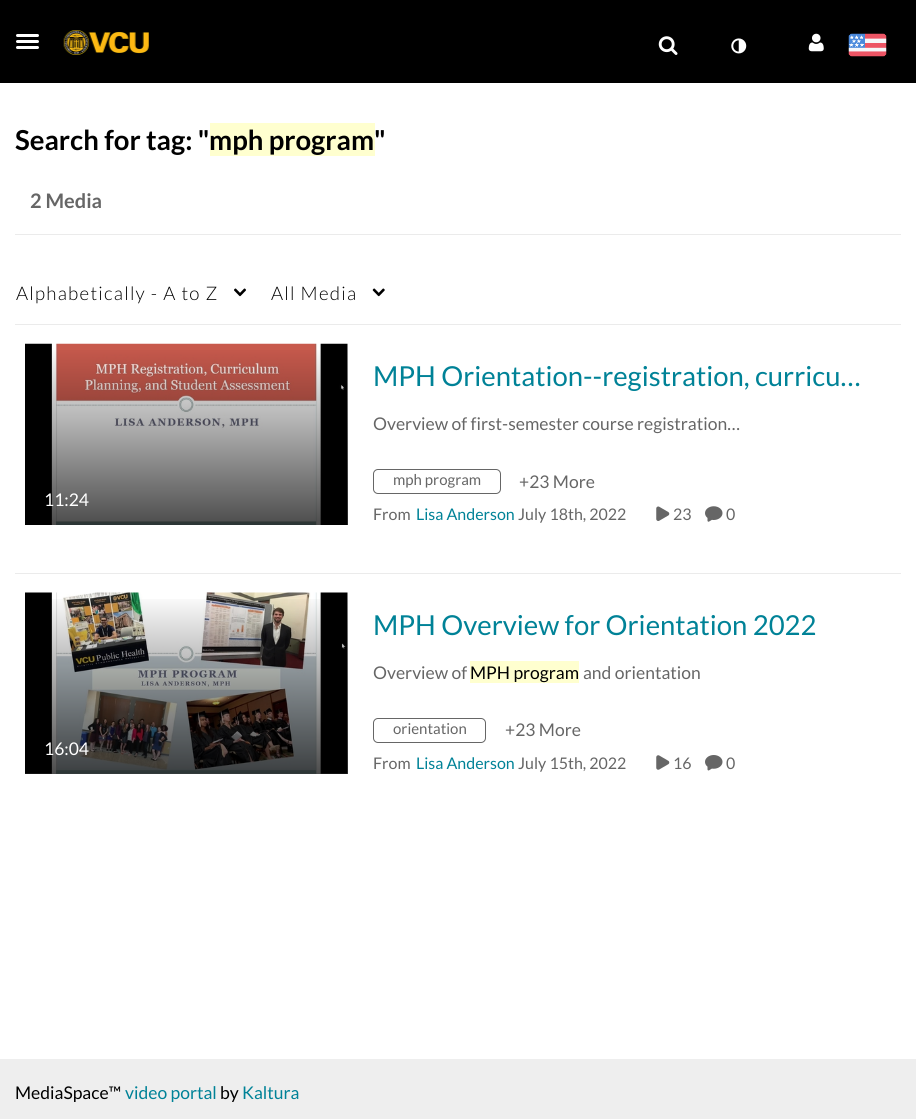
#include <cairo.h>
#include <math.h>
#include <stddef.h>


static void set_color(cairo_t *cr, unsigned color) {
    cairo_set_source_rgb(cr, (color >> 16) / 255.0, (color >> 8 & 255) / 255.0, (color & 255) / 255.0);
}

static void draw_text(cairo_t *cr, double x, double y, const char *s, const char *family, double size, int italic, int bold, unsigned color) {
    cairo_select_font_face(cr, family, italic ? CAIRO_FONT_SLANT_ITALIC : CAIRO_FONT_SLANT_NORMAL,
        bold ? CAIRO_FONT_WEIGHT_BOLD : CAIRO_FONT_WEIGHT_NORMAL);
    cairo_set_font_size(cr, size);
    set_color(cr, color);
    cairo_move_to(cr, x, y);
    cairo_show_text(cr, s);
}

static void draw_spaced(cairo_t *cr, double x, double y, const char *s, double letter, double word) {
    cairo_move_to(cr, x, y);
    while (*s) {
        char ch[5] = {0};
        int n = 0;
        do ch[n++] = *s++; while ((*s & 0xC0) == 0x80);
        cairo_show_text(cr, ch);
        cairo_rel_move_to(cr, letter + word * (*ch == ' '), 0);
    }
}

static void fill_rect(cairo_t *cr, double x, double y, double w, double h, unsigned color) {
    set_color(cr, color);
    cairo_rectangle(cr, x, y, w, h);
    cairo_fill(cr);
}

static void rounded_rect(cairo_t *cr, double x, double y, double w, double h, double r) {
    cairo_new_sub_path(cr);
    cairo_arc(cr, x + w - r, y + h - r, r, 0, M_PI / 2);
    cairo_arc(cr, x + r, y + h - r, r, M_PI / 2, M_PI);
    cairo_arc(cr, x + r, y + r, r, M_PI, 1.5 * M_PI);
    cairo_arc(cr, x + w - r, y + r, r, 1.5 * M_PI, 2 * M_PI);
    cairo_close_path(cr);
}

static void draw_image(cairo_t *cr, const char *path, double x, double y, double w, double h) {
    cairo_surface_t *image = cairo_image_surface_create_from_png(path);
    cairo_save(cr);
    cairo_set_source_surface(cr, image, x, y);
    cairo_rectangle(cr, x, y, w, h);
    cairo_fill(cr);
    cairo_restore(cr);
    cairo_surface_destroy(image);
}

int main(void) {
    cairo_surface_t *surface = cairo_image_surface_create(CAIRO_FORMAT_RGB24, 916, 1119);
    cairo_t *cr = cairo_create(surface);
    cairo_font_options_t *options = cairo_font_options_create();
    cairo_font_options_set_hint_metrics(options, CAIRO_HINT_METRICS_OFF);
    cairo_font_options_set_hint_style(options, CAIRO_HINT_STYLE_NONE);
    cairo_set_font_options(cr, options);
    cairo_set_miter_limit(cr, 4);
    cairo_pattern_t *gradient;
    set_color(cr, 0xFFFFFF);
    cairo_paint(cr);
    fill_rect(cr, 0, 0, 916, 83, 0x000000);
    set_color(cr, 0xFFFFFF);
    rounded_rect(cr, 16, 34, 23, 3, 1.5);
    cairo_fill(cr);
    rounded_rect(cr, 16, 40, 23, 3, 1.5);
    cairo_fill(cr);
    rounded_rect(cr, 16, 46, 23, 3, 1.5);
    cairo_fill(cr);
    draw_image(cr, "assets/img1.png", 63, 30, 86, 25);
    draw_image(cr, "assets/img2.png", 658, 36, 20, 19);
    draw_image(cr, "assets/img3.png", 731, 38, 16, 16);
    draw_image(cr, "assets/img4.png", 808, 33, 16, 19);
    draw_image(cr, "assets/img5.png", 848, 33, 39, 24);
    draw_text(cr, 15, 150, "Search for tag: \"", "Lato", 27.5, 0, 1, 0x000000);
    fill_rect(cr, 210, 123, 165, 33, 0xFFFFCF);
    draw_text(cr, 209, 150, "mph program\"", "Lato", 27.5, 0, 1, 0x000000);
    fill_rect(cr, 15, 234, 886, 1, 0xEBEBEB);
    draw_text(cr, 30, 208, "2 Media", "Lato", 20, 0, 1, 0x666666);
    cairo_select_font_face(cr, "Lato Light", CAIRO_FONT_SLANT_NORMAL, CAIRO_FONT_WEIGHT_NORMAL);
    cairo_set_font_size(cr, 18.75);
    set_color(cr, 0x000000);
    draw_spaced(cr, 16, 300, "Alphabetically - A to Z", 1.25, 0);
    draw_image(cr, "assets/img6.png", 234, 288, 12, 9);
    draw_spaced(cr, 271, 300, "All Media", 1.25, 0);
    draw_image(cr, "assets/img7.png", 372, 288, 13, 9);
    draw_image(cr, "assets/img8.png", 25, 343, 323, 182);
    gradient = cairo_pattern_create_linear(186, 344, 186, 525);
    cairo_pattern_add_color_stop_rgba(gradient, 0, 0, 0, 0, 0);
    cairo_pattern_add_color_stop_rgba(gradient, 1, 0, 0, 0, 0.7);
    cairo_set_source(cr, gradient);
    cairo_pattern_destroy(gradient);
    cairo_rectangle(cr, 51, 350, 297, 175);
    cairo_fill(cr);
    draw_text(cr, 44, 506, "11:24", "Lato", 17.5, 0, 0, 0xFFFFFF);
    fill_rect(cr, 15, 324, 886, 1, 0xEBEBEB);
    draw_text(cr, 373, 386, "MPH Orientation--registration, curricu…", "Lato", 27.5, 0, 0, 0x008297);
    draw_text(cr, 373, 430, "Overview of first-semester course registration…", "Lato", 17.5, 0, 0, 0x666666);
    rounded_rect(cr, 373.5, 469.5, 127, 24, 4.5);
    cairo_set_line_width(cr, 1);
    cairo_stroke(cr);
    draw_text(cr, 393, 485, "mph program", "Lato", 15, 0, 0, 0x666666);
    draw_text(cr, 519, 488, "+23 More", "Lato", 17.5, 0, 0, 0x666666);
    draw_text(cr, 373, 520, "From", "Lato", 16, 0, 0, 0x666666);
    draw_text(cr, 416, 520, "Lisa Anderson", "Lato", 16, 0, 0, 0x008297);
    draw_text(cr, 518, 520, "July 18th, 2022", "Lato", 16, 0, 0, 0x666666);
    draw_image(cr, "assets/img9.png", 656, 506, 14, 15);
    draw_text(cr, 673, 520, "23", "Lato", 16, 0, 0, 0x666666);
    draw_image(cr, "assets/img10.png", 705, 506, 18, 16);
    draw_text(cr, 726, 520, "0", "Lato", 16, 0, 0, 0x666666);
    draw_image(cr, "assets/img11.png", 25, 592, 323, 182);
    gradient = cairo_pattern_create_linear(186, 593, 186, 774);
    cairo_pattern_add_color_stop_rgba(gradient, 0, 0, 0, 0, 0);
    cairo_pattern_add_color_stop_rgba(gradient, 1, 0, 0, 0, 0.7);
    cairo_set_source(cr, gradient);
    cairo_pattern_destroy(gradient);
    cairo_rectangle(cr, 25, 599, 323, 175);
    cairo_fill(cr);
    draw_text(cr, 44, 755, "16:04", "Lato", 17.5, 0, 0, 0xFFFFFF);
    fill_rect(cr, 15, 573, 886, 1, 0xEBEBEB);
    draw_text(cr, 373, 635, "MPH Overview for Orientation 2022", "Lato", 27.5, 0, 0, 0x008297);
    draw_text(cr, 373, 679, "Overview of", "Lato", 17.5, 0, 0, 0x666666);
    fill_rect(cr, 470, 661, 109, 22, 0xFFFFCF);
    draw_text(cr, 470, 679, "MPH program", "Lato", 17.5, 0, 0, 0x000000);
    draw_text(cr, 583, 679, "and orientation", "Lato", 17.5, 0, 0, 0x666666);
    rounded_rect(cr, 373.5, 718.5, 112, 24, 4.5);
    cairo_stroke(cr);
    draw_text(cr, 393, 734, "orientation", "Lato", 15, 0, 0, 0x666666);
    draw_text(cr, 505, 736, "+23 More", "Lato", 17.5, 0, 0, 0x666666);
    draw_text(cr, 373, 769, "From", "Lato", 16, 0, 0, 0x666666);
    draw_text(cr, 416, 769, "Lisa Anderson", "Lato", 16, 0, 0, 0x008297);
    draw_text(cr, 518, 769, "July 15th, 2022", "Lato", 16, 0, 0, 0x666666);
    draw_image(cr, "assets/img12.png", 656, 755, 14, 15);
    draw_text(cr, 673, 769, "16", "Lato", 16, 0, 0, 0x666666);
    draw_image(cr, "assets/img13.png", 705, 755, 18, 16);
    draw_text(cr, 726, 769, "0", "Lato", 16, 0, 0, 0x666666);
    fill_rect(cr, 0, 1059, 916, 60, 0xEEEEEE);
    draw_text(cr, 15, 1099, "MediaSpace™", "Lato", 17.5, 0, 0, 0x000000);
    draw_text(cr, 125, 1099, "video portal", "Lato", 17.5, 0, 0, 0x008297);
    draw_text(cr, 220, 1099, "by", "Lato", 17.5, 0, 0, 0x000000);
    draw_text(cr, 242, 1099, "Kaltura", "Lato", 17.5, 0, 0, 0x008297);
    cairo_surface_write_to_png(surface, "output.png");
    cairo_font_options_destroy(options);
    cairo_destroy(cr);
    cairo_surface_destroy(surface);
    return 0;
}
